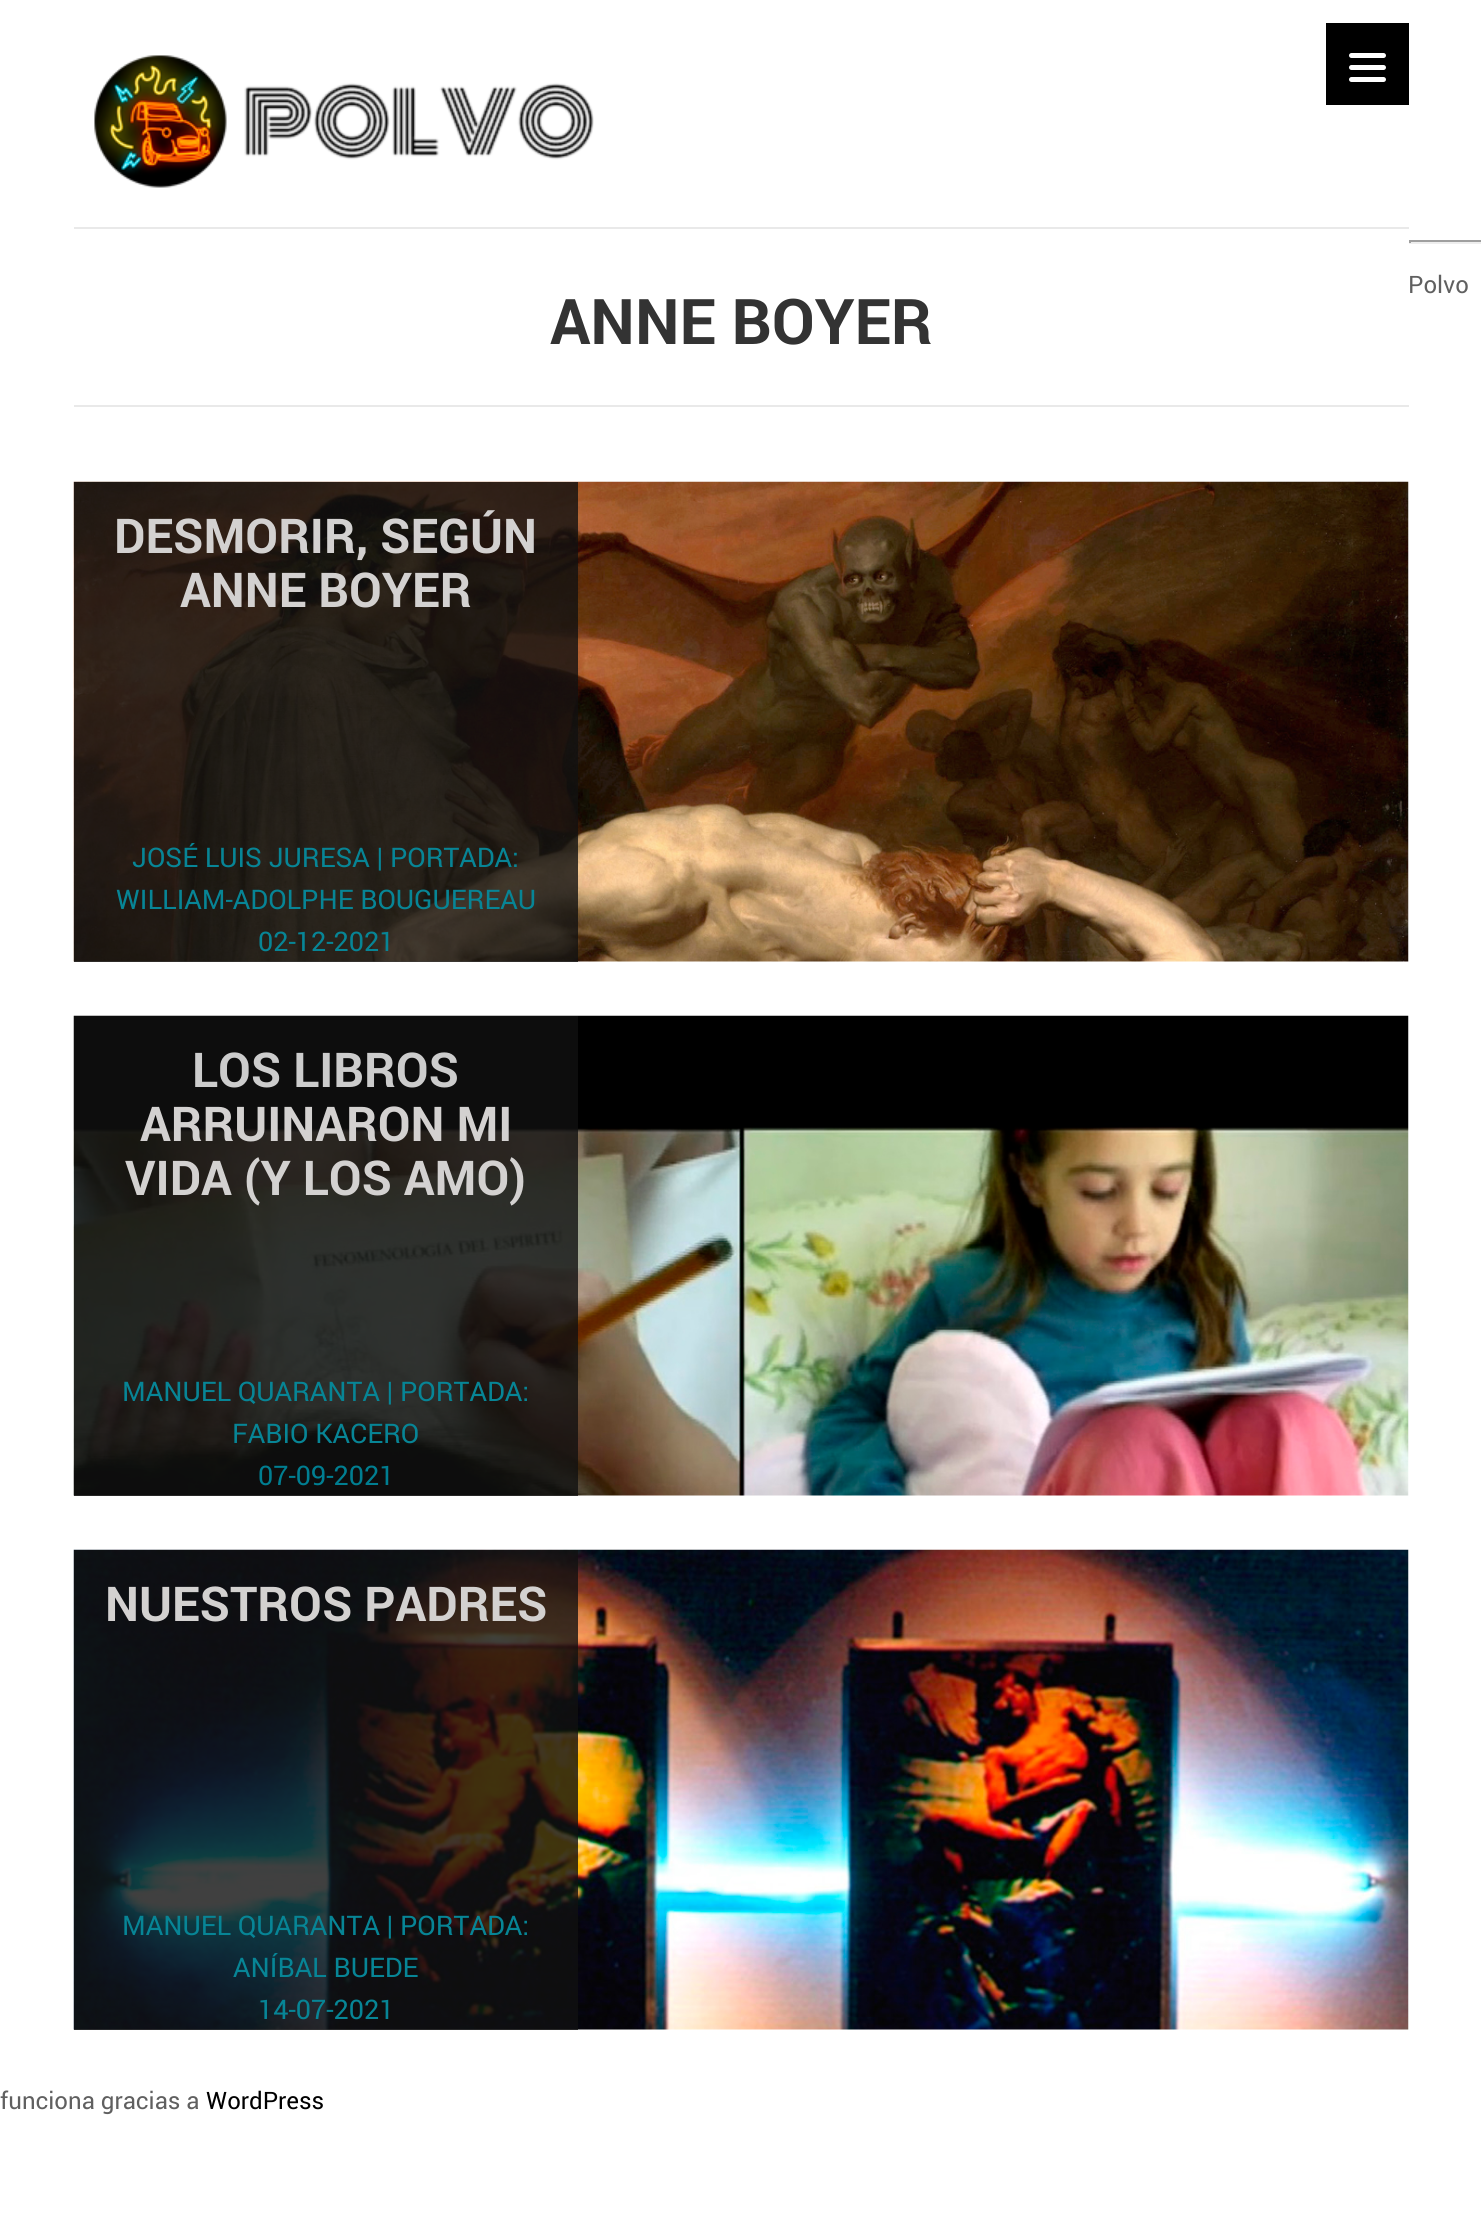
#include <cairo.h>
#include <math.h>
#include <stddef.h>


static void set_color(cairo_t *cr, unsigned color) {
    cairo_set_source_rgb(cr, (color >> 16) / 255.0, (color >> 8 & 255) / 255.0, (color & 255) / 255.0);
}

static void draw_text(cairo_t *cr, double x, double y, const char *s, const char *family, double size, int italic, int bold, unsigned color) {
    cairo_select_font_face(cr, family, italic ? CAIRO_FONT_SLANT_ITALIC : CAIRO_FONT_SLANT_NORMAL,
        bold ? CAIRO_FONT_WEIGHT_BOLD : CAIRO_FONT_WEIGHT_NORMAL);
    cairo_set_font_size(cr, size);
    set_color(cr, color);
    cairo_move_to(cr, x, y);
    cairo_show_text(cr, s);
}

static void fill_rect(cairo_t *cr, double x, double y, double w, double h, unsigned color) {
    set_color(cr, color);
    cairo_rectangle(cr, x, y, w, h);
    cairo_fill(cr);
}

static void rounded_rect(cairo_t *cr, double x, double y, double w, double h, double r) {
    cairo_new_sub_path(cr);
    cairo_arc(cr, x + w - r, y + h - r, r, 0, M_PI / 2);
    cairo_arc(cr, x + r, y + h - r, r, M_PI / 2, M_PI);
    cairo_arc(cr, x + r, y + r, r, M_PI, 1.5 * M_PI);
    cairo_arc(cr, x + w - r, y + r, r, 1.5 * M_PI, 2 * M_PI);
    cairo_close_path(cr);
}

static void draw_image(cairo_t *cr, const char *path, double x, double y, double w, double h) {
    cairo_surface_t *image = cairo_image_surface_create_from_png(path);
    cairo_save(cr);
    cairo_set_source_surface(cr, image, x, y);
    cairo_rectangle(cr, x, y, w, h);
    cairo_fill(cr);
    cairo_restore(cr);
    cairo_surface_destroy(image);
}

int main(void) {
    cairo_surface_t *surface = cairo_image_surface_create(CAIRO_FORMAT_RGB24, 1481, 2234);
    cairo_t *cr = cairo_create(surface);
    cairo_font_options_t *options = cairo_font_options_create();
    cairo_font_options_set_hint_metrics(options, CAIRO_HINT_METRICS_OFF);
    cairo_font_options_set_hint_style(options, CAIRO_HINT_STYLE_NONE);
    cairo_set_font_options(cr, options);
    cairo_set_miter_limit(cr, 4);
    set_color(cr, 0xFFFFFF);
    cairo_paint(cr);
    fill_rect(cr, 1326, 23, 83, 82, 0x000000);
    set_color(cr, 0xFFFFFF);
    rounded_rect(cr, 1349, 65, 37, 5, 2.5);
    cairo_fill(cr);
    rounded_rect(cr, 1349, 53, 37, 5, 2.5);
    cairo_fill(cr);
    rounded_rect(cr, 1349, 77, 37, 5, 2.5);
    cairo_fill(cr);
    fill_rect(cr, 1409, 240, 72, 2, 0x9F9F9F);
    fill_rect(cr, 1409, 242, 72, 2, 0xEEEEEE);
    fill_rect(cr, 1409, 240, 2, 3, 0x9F9F9F);
    draw_text(cr, 1408, 293, "Polvo", "Roboto", 24, 0, 0, 0x606060);
    draw_text(cr, 0, 2109, "funciona gracias a", "Roboto", 24, 0, 0, 0x606060);
    draw_text(cr, 206, 2109, "WordPress", "Roboto", 24, 0, 0, 0x000000);
    draw_image(cr, "assets/img1.png", 94, 55, 500, 133);
    fill_rect(cr, 74, 227, 1335, 2, 0xE9E9E9);
    fill_rect(cr, 74, 405, 1335, 2, 0xE9E9E9);
    draw_text(cr, 550, 344, "ANNE BOYER", "Roboto", 63, 0, 1, 0x333333);
    draw_image(cr, "assets/img2.png", 73, 481, 1336, 481);
    cairo_set_source_rgba(cr, 0.067, 0.067, 0.067, 0.8);
    cairo_rectangle(cr, 74, 482, 504, 480);
    cairo_fill(cr);
    draw_text(cr, 114, 553, "DESMORIR, SEGÚN", "Roboto", 48, 0, 1, 0xD3D1D0);
    draw_text(cr, 180, 607, "ANNE BOYER", "Roboto", 48, 0, 1, 0xD3D1D0);
    draw_text(cr, 132, 867, "JOSÉ LUIS JURESA | PORTADA:", "Roboto", 27, 0, 0, 0x078596);
    draw_text(cr, 116, 909, "WILLIAM-ADOLPHE BOUGUEREAU", "Roboto", 27, 0, 0, 0x078596);
    draw_text(cr, 258, 951, "02-12-2021", "Roboto", 27, 0, 0, 0x078596);
    draw_image(cr, "assets/img3.png", 73, 1015, 1336, 481);
    cairo_set_source_rgba(cr, 0.067, 0.067, 0.067, 0.8);
    cairo_rectangle(cr, 74, 1016, 504, 480);
    cairo_fill(cr);
    draw_text(cr, 192, 1087, "LOS LIBROS", "Roboto", 48, 0, 1, 0xCCCCCC);
    draw_text(cr, 140, 1141, "ARRUINARON MI", "Roboto", 48, 0, 1, 0xD3D1D0);
    draw_text(cr, 125, 1195, "VIDA (Y LOS AMO)", "Roboto", 48, 0, 1, 0xD3D1D0);
    draw_text(cr, 122, 1401, "MANUEL QUARANTA | PORTADA:", "Roboto", 27, 0, 0, 0x078596);
    draw_text(cr, 232, 1443, "FABIO KACERO", "Roboto", 27, 0, 0, 0x078596);
    draw_text(cr, 258, 1485, "07-09-2021", "Roboto", 27, 0, 0, 0x007E91);
    draw_image(cr, "assets/img4.png", 73, 1549, 1336, 481);
    cairo_set_source_rgba(cr, 0.067, 0.067, 0.067, 0.8);
    cairo_rectangle(cr, 74, 1550, 504, 480);
    cairo_fill(cr);
    draw_text(cr, 105, 1621, "NUESTROS PADRES", "Roboto", 48, 0, 1, 0xD3D1D0);
    draw_text(cr, 122, 1935, "MANUEL QUARANTA | PORTADA:", "Roboto", 27, 0, 0, 0x078596);
    draw_text(cr, 233, 1977, "ANÍBAL BUEDE", "Roboto", 27, 0, 0, 0x078596);
    draw_text(cr, 258, 2019, "14-07-2021", "Roboto", 27, 0, 0, 0x078596);
    cairo_surface_write_to_png(surface, "output.png");
    cairo_font_options_destroy(options);
    cairo_destroy(cr);
    cairo_surface_destroy(surface);
    return 0;
}
